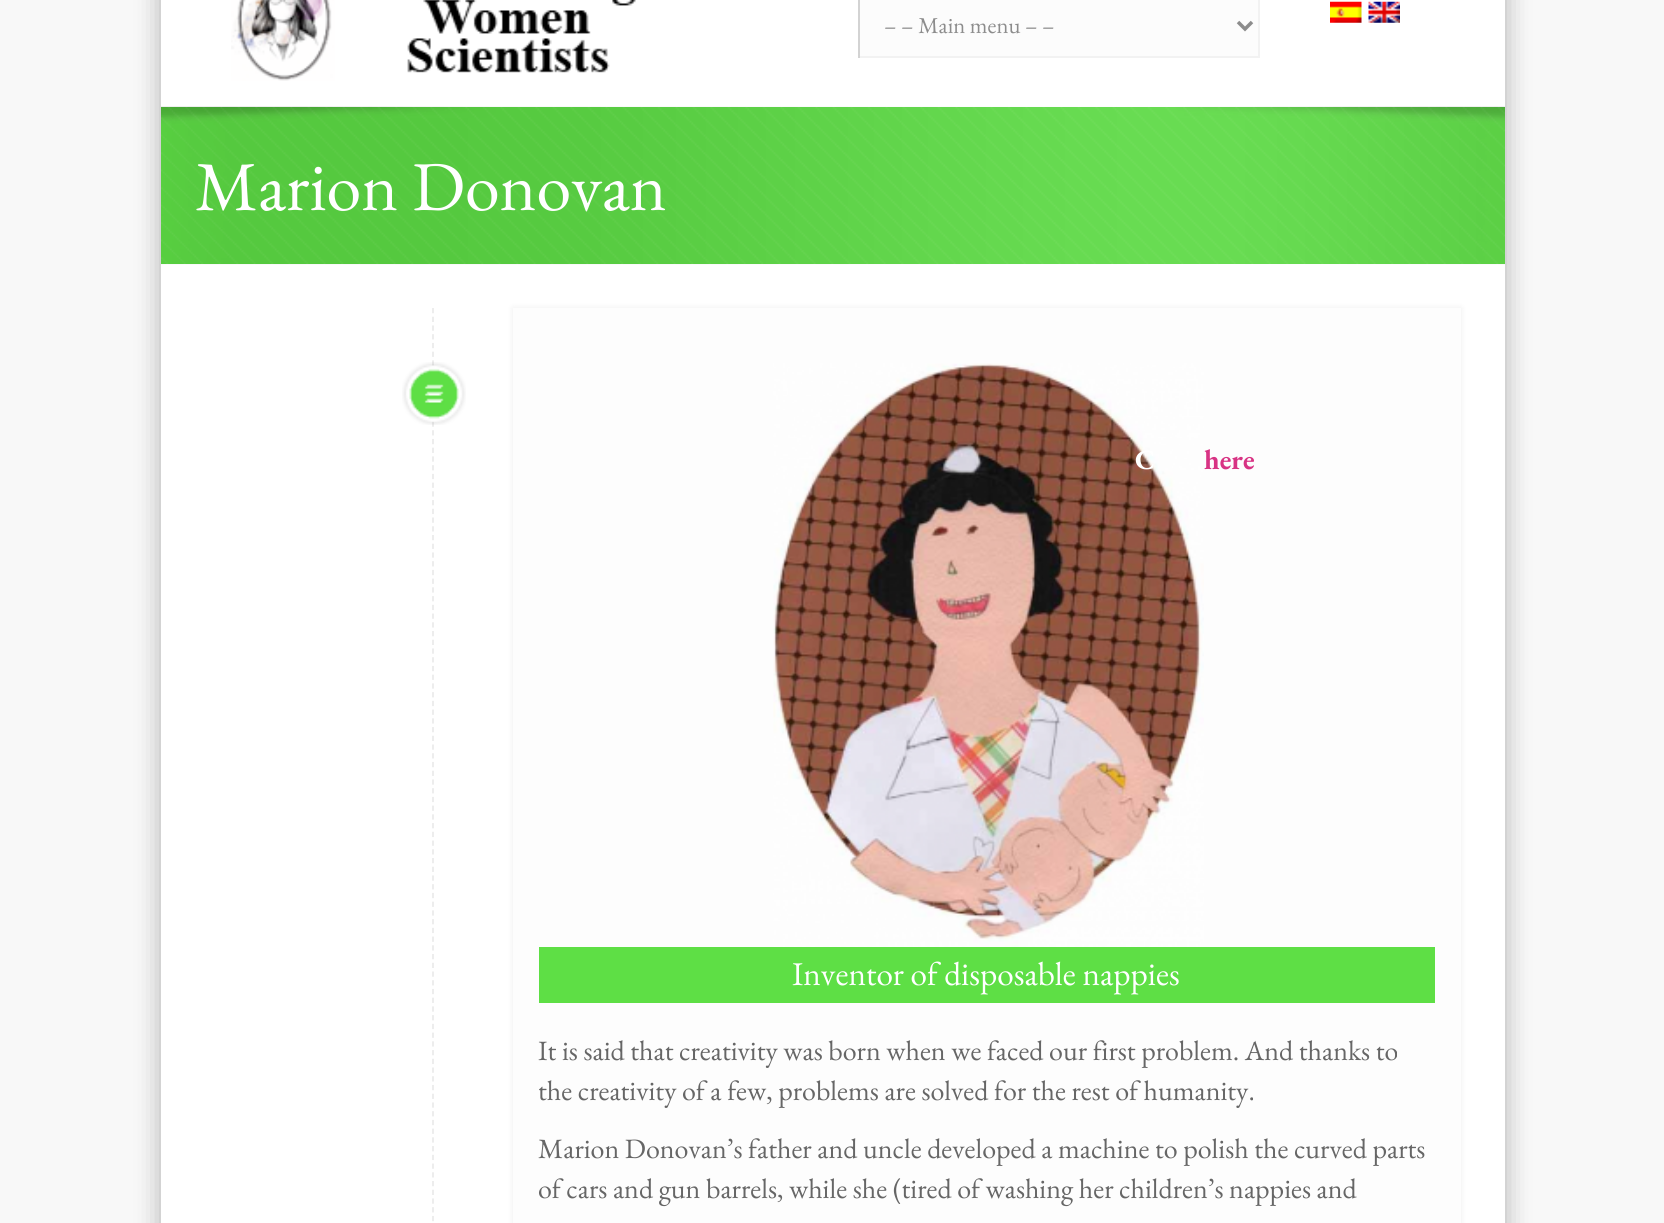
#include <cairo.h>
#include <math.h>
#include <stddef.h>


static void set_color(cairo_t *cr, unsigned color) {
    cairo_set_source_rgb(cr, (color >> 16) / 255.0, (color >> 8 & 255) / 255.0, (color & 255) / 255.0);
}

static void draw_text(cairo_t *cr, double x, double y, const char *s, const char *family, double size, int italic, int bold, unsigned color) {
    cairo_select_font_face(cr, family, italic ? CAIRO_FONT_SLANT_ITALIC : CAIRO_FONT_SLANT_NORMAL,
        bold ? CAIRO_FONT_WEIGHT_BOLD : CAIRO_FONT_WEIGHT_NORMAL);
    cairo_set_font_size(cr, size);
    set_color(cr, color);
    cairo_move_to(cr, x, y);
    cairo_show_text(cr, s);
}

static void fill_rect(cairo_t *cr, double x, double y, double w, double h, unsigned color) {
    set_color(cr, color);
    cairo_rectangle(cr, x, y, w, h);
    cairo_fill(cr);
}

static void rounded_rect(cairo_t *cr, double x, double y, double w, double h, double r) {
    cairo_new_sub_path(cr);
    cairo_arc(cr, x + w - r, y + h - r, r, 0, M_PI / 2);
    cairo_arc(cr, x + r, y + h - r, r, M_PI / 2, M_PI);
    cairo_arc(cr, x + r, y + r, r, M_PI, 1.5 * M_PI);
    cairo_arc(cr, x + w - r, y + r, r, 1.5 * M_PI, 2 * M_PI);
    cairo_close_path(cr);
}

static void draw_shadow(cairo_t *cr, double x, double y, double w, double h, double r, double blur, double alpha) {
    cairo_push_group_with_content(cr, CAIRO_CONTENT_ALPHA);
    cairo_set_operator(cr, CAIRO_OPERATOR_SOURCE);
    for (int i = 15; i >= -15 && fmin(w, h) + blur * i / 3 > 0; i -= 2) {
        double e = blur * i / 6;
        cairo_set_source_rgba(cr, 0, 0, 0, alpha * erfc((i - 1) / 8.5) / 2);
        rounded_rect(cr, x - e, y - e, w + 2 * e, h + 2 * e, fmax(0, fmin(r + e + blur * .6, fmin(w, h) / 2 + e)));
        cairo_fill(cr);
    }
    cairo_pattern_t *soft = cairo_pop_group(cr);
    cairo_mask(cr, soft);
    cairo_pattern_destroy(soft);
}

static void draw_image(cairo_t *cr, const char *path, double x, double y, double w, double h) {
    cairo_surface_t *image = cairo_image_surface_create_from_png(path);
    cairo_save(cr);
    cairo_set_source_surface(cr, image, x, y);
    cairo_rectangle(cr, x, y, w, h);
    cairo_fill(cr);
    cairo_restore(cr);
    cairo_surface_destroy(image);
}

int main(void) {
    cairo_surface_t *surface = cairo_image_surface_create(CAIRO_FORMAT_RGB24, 1664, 1223);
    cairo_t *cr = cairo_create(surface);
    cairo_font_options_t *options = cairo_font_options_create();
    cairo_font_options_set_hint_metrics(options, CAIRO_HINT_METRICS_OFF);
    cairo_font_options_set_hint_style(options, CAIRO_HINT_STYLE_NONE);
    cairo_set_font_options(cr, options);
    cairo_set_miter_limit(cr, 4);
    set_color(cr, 0xF8F8F8);
    cairo_paint(cr);
    set_color(cr, 0x000000);
    draw_shadow(cr, 161, -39, 1344, 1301, 0, 13, 0.3);
    fill_rect(cr, 161, 0, 1344, 1223, 0xFFFFFF);
    draw_image(cr, "assets/img1.png", 231, 0, 405, 81);
    draw_image(cr, "assets/img2.png", 1330, 1, 32, 22);
    draw_image(cr, "assets/img3.png", 1368, 1, 32, 22);
    fill_rect(cr, 860, 0, 398, 56, 0xFCFCFC);
    fill_rect(cr, 1258, 0, 2, 58, 0xF2F2F2);
    fill_rect(cr, 858, 56, 402, 2, 0xF2F2F2);
    fill_rect(cr, 858, 0, 2, 58, 0xD3D3D3);
    cairo_new_path(cr);
    cairo_move_to(cr, 1238, 22);
    cairo_line_to(cr, 1245, 29);
    cairo_line_to(cr, 1252, 22);
    set_color(cr, 0x8C8C8C);
    cairo_set_line_width(cr, 3.5);
    cairo_stroke(cr);
    draw_text(cr, 884, 33, "– – Main menu – –", "EB Garamond", 22.75, 0, 0, 0x8C8C8C);
    fill_rect(cr, 161, 107, 1344, 157, 0x5EDF45);
    draw_image(cr, "assets/img4.png", 161, 106, 1344, 159);
    draw_text(cr, 195, 210, "Marion Donovan", "EB Garamond", 70, 0, 0, 0xFFFFFF);
    cairo_new_path(cr);
    cairo_move_to(cr, 433, 308);
    cairo_line_to(cr, 433, 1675);
    set_color(cr, 0xEBEBEB);
    cairo_set_line_width(cr, 1.8);
    cairo_set_dash(cr, (double[]){5.25, 3.48}, 2, 0);
    cairo_stroke(cr);
    draw_image(cr, "assets/img5.png", 402, 362, 64, 63);
    set_color(cr, 0x000000);
    draw_shadow(cr, 513, 308, 948, 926, 0, 3.5, 0.07);
    fill_rect(cr, 513, 308, 948, 915, 0xFDFDFD);
    draw_image(cr, "assets/img6.png", 773, 363, 431, 584);
    draw_text(cr, 1135, 469, "C", "EB Garamond", 28, 0, 1, 0xFFFFFF);
    draw_text(cr, 1204, 469, "here", "EB Garamond", 28, 0, 1, 0xD83384);
    fill_rect(cr, 539, 947, 896, 56, 0x5EDF45);
    draw_text(cr, 792, 985, "Inventor of disposable nappies", "EB Garamond", 33.25, 0, 0, 0xFFFFFF);
    draw_text(cr, 538, 1060, "It is said that creativity was born when we faced our first problem. And thanks to", "EB Garamond", 28, 0, 0, 0x666666);
    draw_text(cr, 538, 1100, "the creativity of a few, problems are solved for the rest of humanity.", "EB Garamond", 28, 0, 0, 0x666666);
    draw_text(cr, 538, 1158, "Marion Donovan’s father and uncle developed a machine to polish the curved parts", "EB Garamond", 28, 0, 0, 0x666666);
    draw_text(cr, 538, 1198, "of cars and gun barrels, while she (tired of washing her children’s nappies and", "EB Garamond", 28, 0, 0, 0x666666);
    cairo_surface_write_to_png(surface, "output.png");
    cairo_font_options_destroy(options);
    cairo_destroy(cr);
    cairo_surface_destroy(surface);
    return 0;
}
